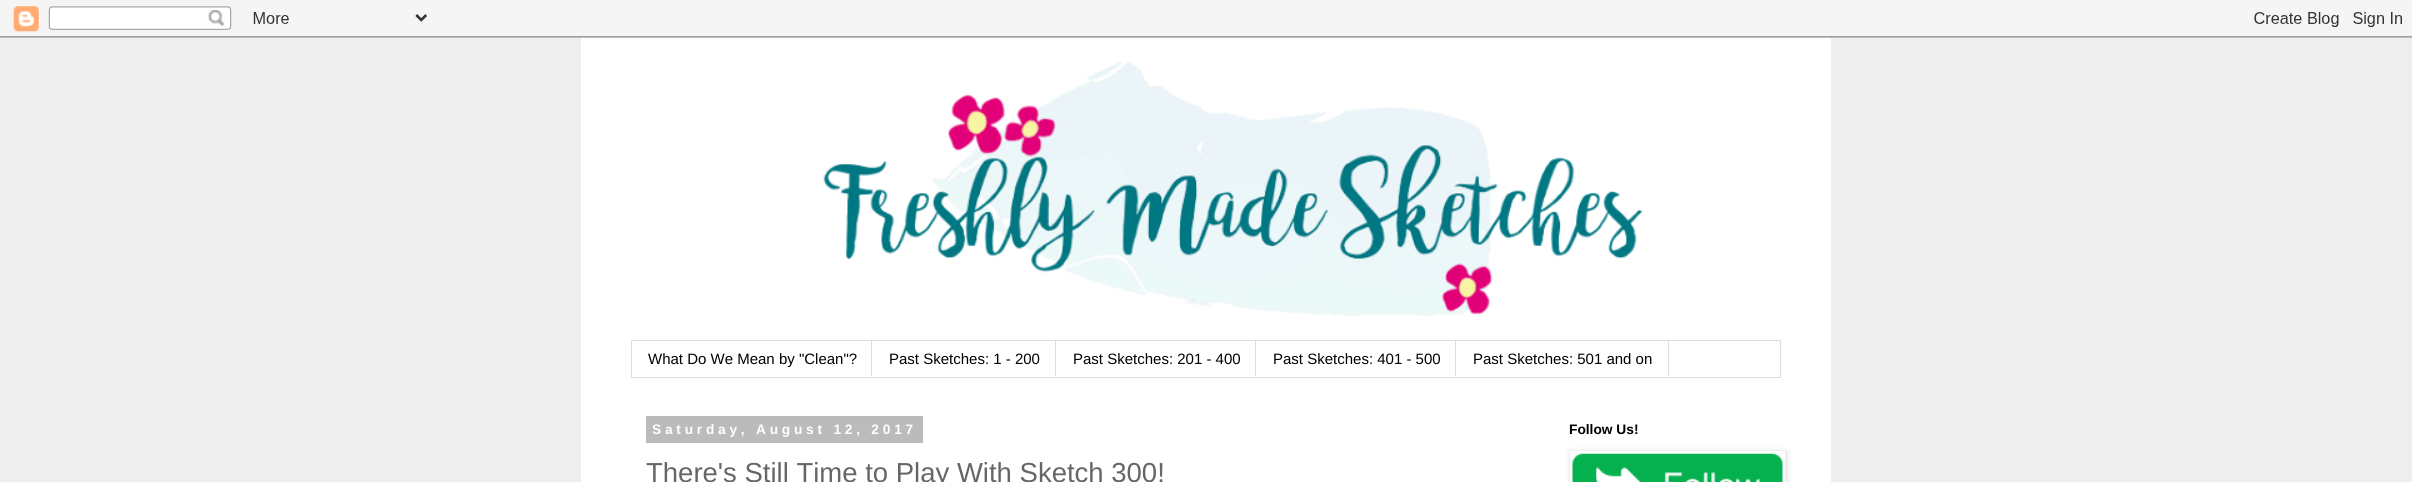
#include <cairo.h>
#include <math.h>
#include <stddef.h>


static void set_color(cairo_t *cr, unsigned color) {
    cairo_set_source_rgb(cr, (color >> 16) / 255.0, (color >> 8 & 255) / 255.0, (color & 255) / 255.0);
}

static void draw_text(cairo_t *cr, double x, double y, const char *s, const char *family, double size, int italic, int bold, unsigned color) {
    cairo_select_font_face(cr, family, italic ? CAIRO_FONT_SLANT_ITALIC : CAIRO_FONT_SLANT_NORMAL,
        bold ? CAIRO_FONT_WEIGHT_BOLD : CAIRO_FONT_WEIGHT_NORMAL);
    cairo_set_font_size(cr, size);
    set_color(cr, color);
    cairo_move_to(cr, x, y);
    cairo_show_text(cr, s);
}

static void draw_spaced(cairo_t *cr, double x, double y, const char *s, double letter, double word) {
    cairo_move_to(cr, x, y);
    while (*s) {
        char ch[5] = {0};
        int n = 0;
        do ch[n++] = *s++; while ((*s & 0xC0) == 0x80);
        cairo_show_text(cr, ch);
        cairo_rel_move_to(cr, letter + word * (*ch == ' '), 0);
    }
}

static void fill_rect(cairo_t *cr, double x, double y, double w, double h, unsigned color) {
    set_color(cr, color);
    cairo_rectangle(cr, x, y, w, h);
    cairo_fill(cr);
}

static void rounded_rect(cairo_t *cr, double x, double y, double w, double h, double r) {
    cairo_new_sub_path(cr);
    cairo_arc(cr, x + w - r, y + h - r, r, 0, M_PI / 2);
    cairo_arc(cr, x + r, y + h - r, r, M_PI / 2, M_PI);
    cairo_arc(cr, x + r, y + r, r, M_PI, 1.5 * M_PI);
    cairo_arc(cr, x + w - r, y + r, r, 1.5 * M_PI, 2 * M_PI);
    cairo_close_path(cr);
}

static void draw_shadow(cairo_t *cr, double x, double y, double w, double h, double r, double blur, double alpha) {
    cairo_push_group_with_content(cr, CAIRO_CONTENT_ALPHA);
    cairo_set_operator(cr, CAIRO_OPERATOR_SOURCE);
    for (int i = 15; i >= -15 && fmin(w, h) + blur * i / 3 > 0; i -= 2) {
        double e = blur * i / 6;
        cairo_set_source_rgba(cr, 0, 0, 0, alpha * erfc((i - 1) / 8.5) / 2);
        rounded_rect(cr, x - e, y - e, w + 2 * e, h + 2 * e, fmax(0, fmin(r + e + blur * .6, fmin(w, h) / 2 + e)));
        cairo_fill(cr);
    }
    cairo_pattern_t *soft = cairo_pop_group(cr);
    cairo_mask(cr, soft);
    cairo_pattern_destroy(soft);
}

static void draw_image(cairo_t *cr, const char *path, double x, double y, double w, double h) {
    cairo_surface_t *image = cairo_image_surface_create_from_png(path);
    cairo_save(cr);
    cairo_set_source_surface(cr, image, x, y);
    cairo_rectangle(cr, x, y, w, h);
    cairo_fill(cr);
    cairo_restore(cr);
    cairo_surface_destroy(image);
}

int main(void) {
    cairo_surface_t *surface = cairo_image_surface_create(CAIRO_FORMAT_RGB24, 2412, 482);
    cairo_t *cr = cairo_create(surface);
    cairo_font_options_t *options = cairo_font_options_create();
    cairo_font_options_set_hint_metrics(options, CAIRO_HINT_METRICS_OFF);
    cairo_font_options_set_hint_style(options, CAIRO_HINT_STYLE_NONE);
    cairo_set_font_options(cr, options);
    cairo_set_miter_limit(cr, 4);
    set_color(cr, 0xEEEEEE);
    cairo_paint(cr);
    draw_image(cr, "assets/img1.png", 0, 0, 2412, 38);
    fill_rect(cr, 581, 38, 1250, 444, 0xFFFFFF);
    draw_image(cr, "assets/img2.png", 823, 61, 820, 255);
    cairo_rectangle(cr, 631.5, 340.5, 1149, 37);
    set_color(cr, 0xDDDDDD);
    cairo_set_line_width(cr, 1);
    cairo_stroke(cr);
    fill_rect(cr, 871, 341, 1, 35, 0xDDDDDD);
    draw_text(cr, 648, 364, "What Do We Mean by \"Clean\"?", "Liberation Sans", 15, 0, 0, 0x000000);
    fill_rect(cr, 1055, 341, 1, 35, 0xDDDDDD);
    draw_text(cr, 889, 364, "Past Sketches: 1 - 200", "Liberation Sans", 15, 0, 0, 0x000000);
    fill_rect(cr, 1255, 341, 1, 35, 0xDDDDDD);
    draw_text(cr, 1073, 364, "Past Sketches: 201 - 400", "Liberation Sans", 15, 0, 0, 0x000000);
    fill_rect(cr, 1455, 341, 1, 35, 0xDDDDDD);
    draw_text(cr, 1273, 364, "Past Sketches: 401 - 500", "Liberation Sans", 15, 0, 0, 0x000000);
    fill_rect(cr, 1668, 341, 1, 35, 0xDDDDDD);
    draw_text(cr, 1473, 364, "Past Sketches: 501 and on", "Liberation Sans", 15, 0, 0, 0x000000);
    fill_rect(cr, 646, 416, 277, 27, 0xBBBBBB);
    cairo_select_font_face(cr, "Liberation Sans", CAIRO_FONT_SLANT_NORMAL, CAIRO_FONT_WEIGHT_BOLD);
    cairo_set_font_size(cr, 13.75);
    set_color(cr, 0xFFFFFF);
    draw_spaced(cr, 652, 434, "Saturday, August 12, 2017", 3.75, 0);
    draw_text(cr, 646, 482, "There's Still Time to Play With Sketch 300!", "Liberation Sans", 27.5, 0, 0, 0x666666);
    draw_text(cr, 1569, 434, "Follow Us!", "Liberation Sans", 13.75, 0, 1, 0x000000);
    cairo_save(cr);
    cairo_set_fill_rule(cr, CAIRO_FILL_RULE_EVEN_ODD);
    cairo_new_path(cr);
    cairo_move_to(cr, 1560, 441);
    cairo_line_to(cr, 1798, 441);
    cairo_line_to(cr, 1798, 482);
    cairo_line_to(cr, 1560, 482);
    cairo_close_path(cr);
    cairo_move_to(cr, 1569, 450);
    cairo_line_to(cr, 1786, 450);
    cairo_line_to(cr, 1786, 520);
    cairo_line_to(cr, 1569, 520);
    cairo_close_path(cr);
    cairo_clip(cr);
    set_color(cr, 0x000000);
    draw_shadow(cr, 1570, 451, 218, 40, 0, 3, 0.1);
    cairo_restore(cr);
    cairo_rectangle(cr, 1569.5, 450.5, 216, 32);
    set_color(cr, 0xEEEEEE);
    cairo_stroke(cr);
    draw_image(cr, "assets/img3.png", 1572, 453, 211, 29);
    cairo_surface_write_to_png(surface, "output.png");
    cairo_font_options_destroy(options);
    cairo_destroy(cr);
    cairo_surface_destroy(surface);
    return 0;
}
